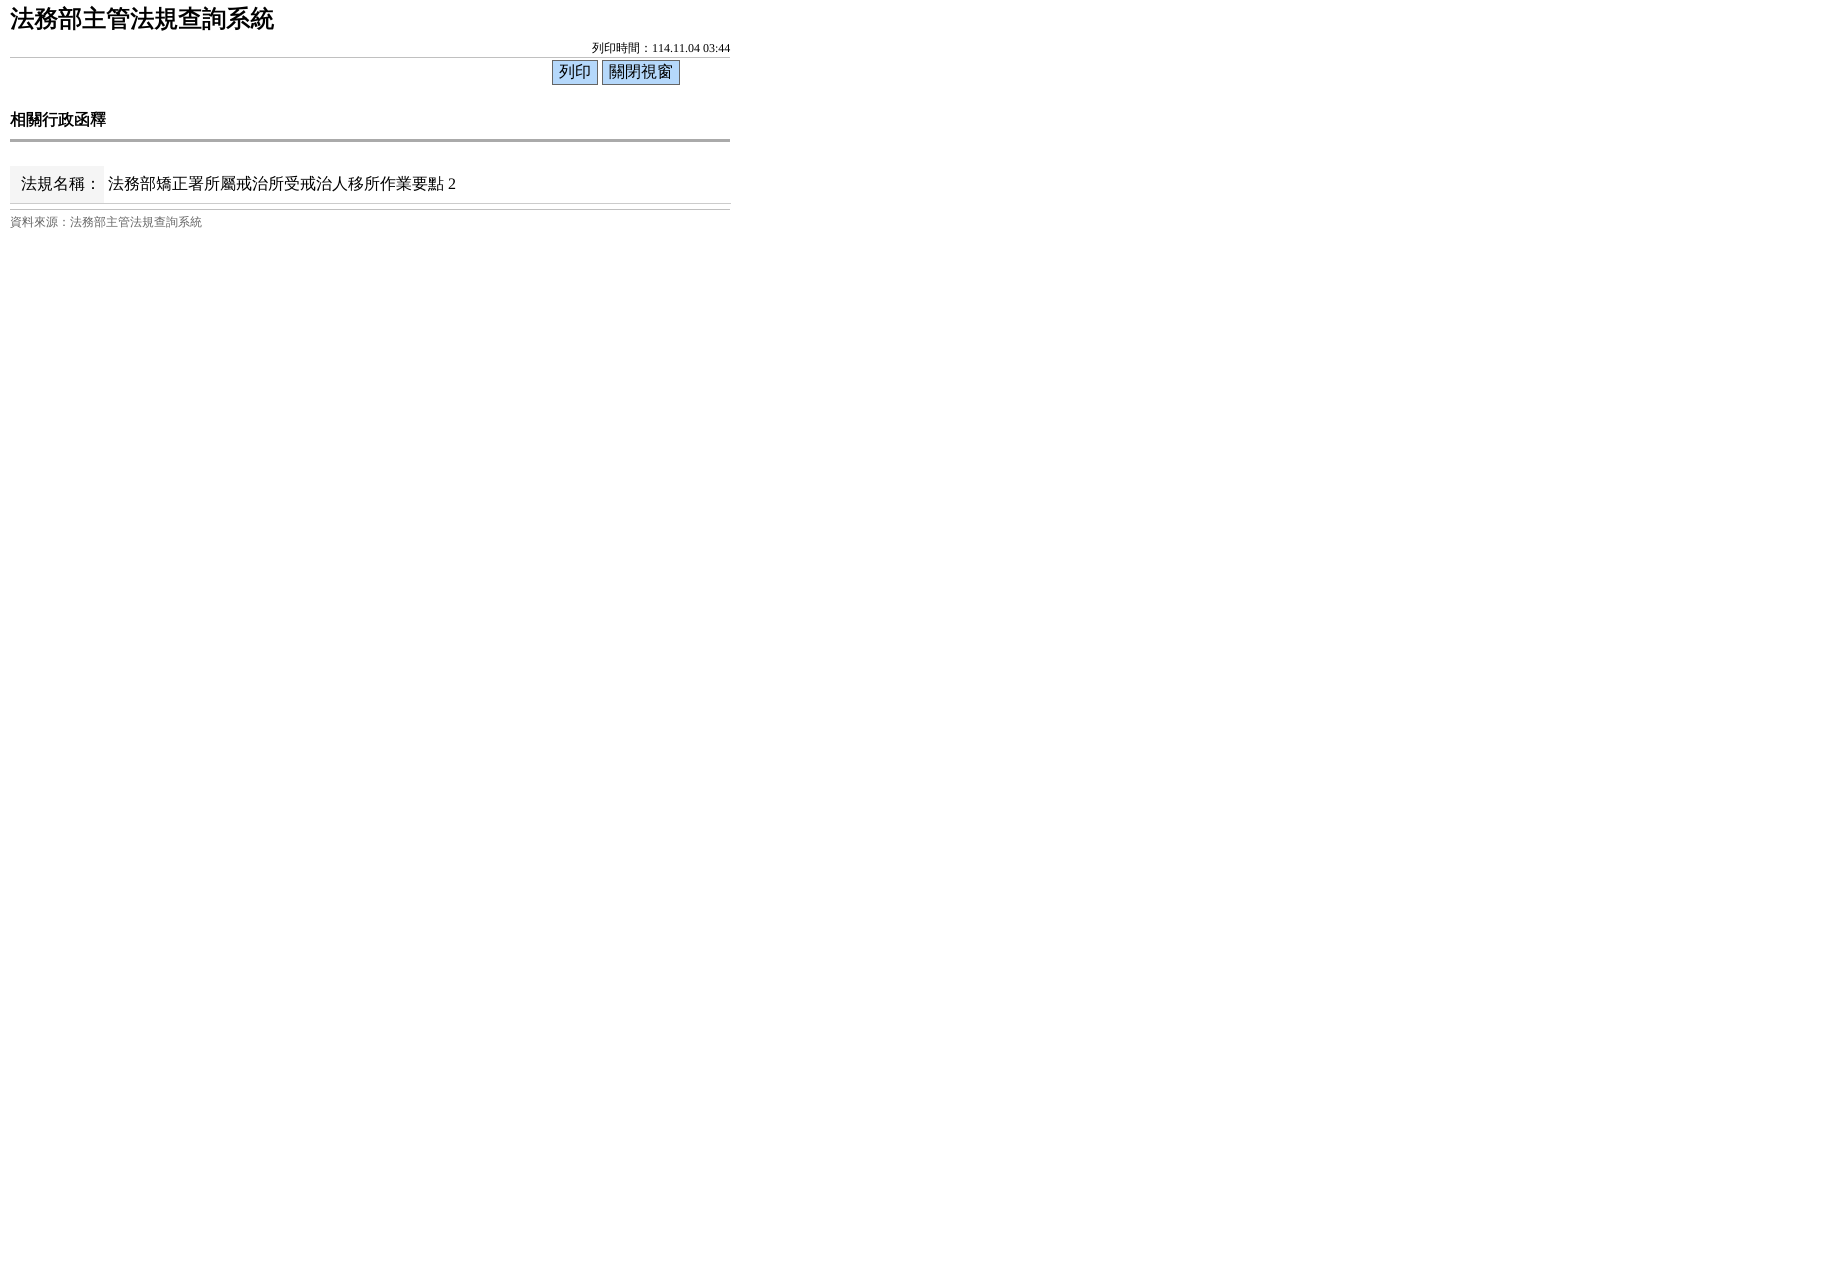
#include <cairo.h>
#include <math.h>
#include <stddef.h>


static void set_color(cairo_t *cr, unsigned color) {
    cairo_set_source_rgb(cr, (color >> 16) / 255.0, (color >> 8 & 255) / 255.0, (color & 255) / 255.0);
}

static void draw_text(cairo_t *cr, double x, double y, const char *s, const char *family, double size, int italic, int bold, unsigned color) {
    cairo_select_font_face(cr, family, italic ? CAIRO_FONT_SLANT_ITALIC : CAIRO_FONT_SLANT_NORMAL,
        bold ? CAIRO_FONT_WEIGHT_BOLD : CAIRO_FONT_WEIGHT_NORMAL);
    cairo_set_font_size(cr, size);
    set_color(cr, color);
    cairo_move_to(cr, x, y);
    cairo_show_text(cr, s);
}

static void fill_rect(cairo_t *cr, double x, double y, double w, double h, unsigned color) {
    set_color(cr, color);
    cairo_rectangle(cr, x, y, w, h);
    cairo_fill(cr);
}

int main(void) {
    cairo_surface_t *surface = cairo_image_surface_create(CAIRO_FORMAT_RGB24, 1848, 1286);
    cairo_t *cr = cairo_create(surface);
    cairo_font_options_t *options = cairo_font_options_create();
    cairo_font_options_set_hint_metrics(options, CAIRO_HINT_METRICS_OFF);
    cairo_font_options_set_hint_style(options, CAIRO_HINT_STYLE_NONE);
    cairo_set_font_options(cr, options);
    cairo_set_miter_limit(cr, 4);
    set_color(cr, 0xFFFFFF);
    cairo_paint(cr);
    fill_rect(cr, 10, 57, 720, 1, 0xC0C0C0);
    draw_text(cr, 10, 27, "法務部主管法規查詢系統", "WenQuanYi Zen Hei", 24, 0, 1, 0x000000);
    draw_text(cr, 592, 52, "列印時間：", "WenQuanYi Zen Hei Medium", 12, 0, 0, 0x000000);
    draw_text(cr, 652, 52, "114.11.04 03:44", "Liberation Serif", 12, 0, 0, 0x000000);
    set_color(cr, 0xB5D8FB);
    cairo_rectangle(cr, 552.5, 60.5, 45, 24);
    cairo_fill_preserve(cr);
    set_color(cr, 0x666666);
    cairo_set_line_width(cr, 1);
    cairo_stroke(cr);
    draw_text(cr, 559, 77, "列印", "WenQuanYi Zen Hei Medium", 16, 0, 0, 0x000000);
    set_color(cr, 0xB5D8FB);
    cairo_rectangle(cr, 602.5, 60.5, 77, 24);
    cairo_fill_preserve(cr);
    set_color(cr, 0x666666);
    cairo_stroke(cr);
    draw_text(cr, 609, 77, "關閉視窗", "WenQuanYi Zen Hei Medium", 16, 0, 0, 0x000000);
    fill_rect(cr, 10, 139, 720, 3, 0xAAAAAA);
    draw_text(cr, 10, 125, "相關行政函釋", "WenQuanYi Zen Hei", 16, 0, 1, 0x000000);
    fill_rect(cr, 10, 166, 94, 37, 0xF5F5F5);
    draw_text(cr, 21, 189, "法規名稱：", "WenQuanYi Zen Hei Medium", 16, 0, 0, 0x000000);
    fill_rect(cr, 10, 203, 721, 1, 0xCCCCCC);
    draw_text(cr, 108, 189, "法務部矯正署所屬戒治所受戒治人移所作業要點", "WenQuanYi Zen Hei Medium", 16, 0, 0, 0x000000);
    draw_text(cr, 448, 189, "2", "Liberation Serif", 16, 0, 0, 0x000000);
    fill_rect(cr, 10, 209, 720, 1, 0xC0C0C0);
    draw_text(cr, 10, 226, "資料來源：法務部主管法規查詢系統", "WenQuanYi Zen Hei Medium", 12, 0, 0, 0x666666);
    cairo_surface_write_to_png(surface, "output.png");
    cairo_font_options_destroy(options);
    cairo_destroy(cr);
    cairo_surface_destroy(surface);
    return 0;
}
